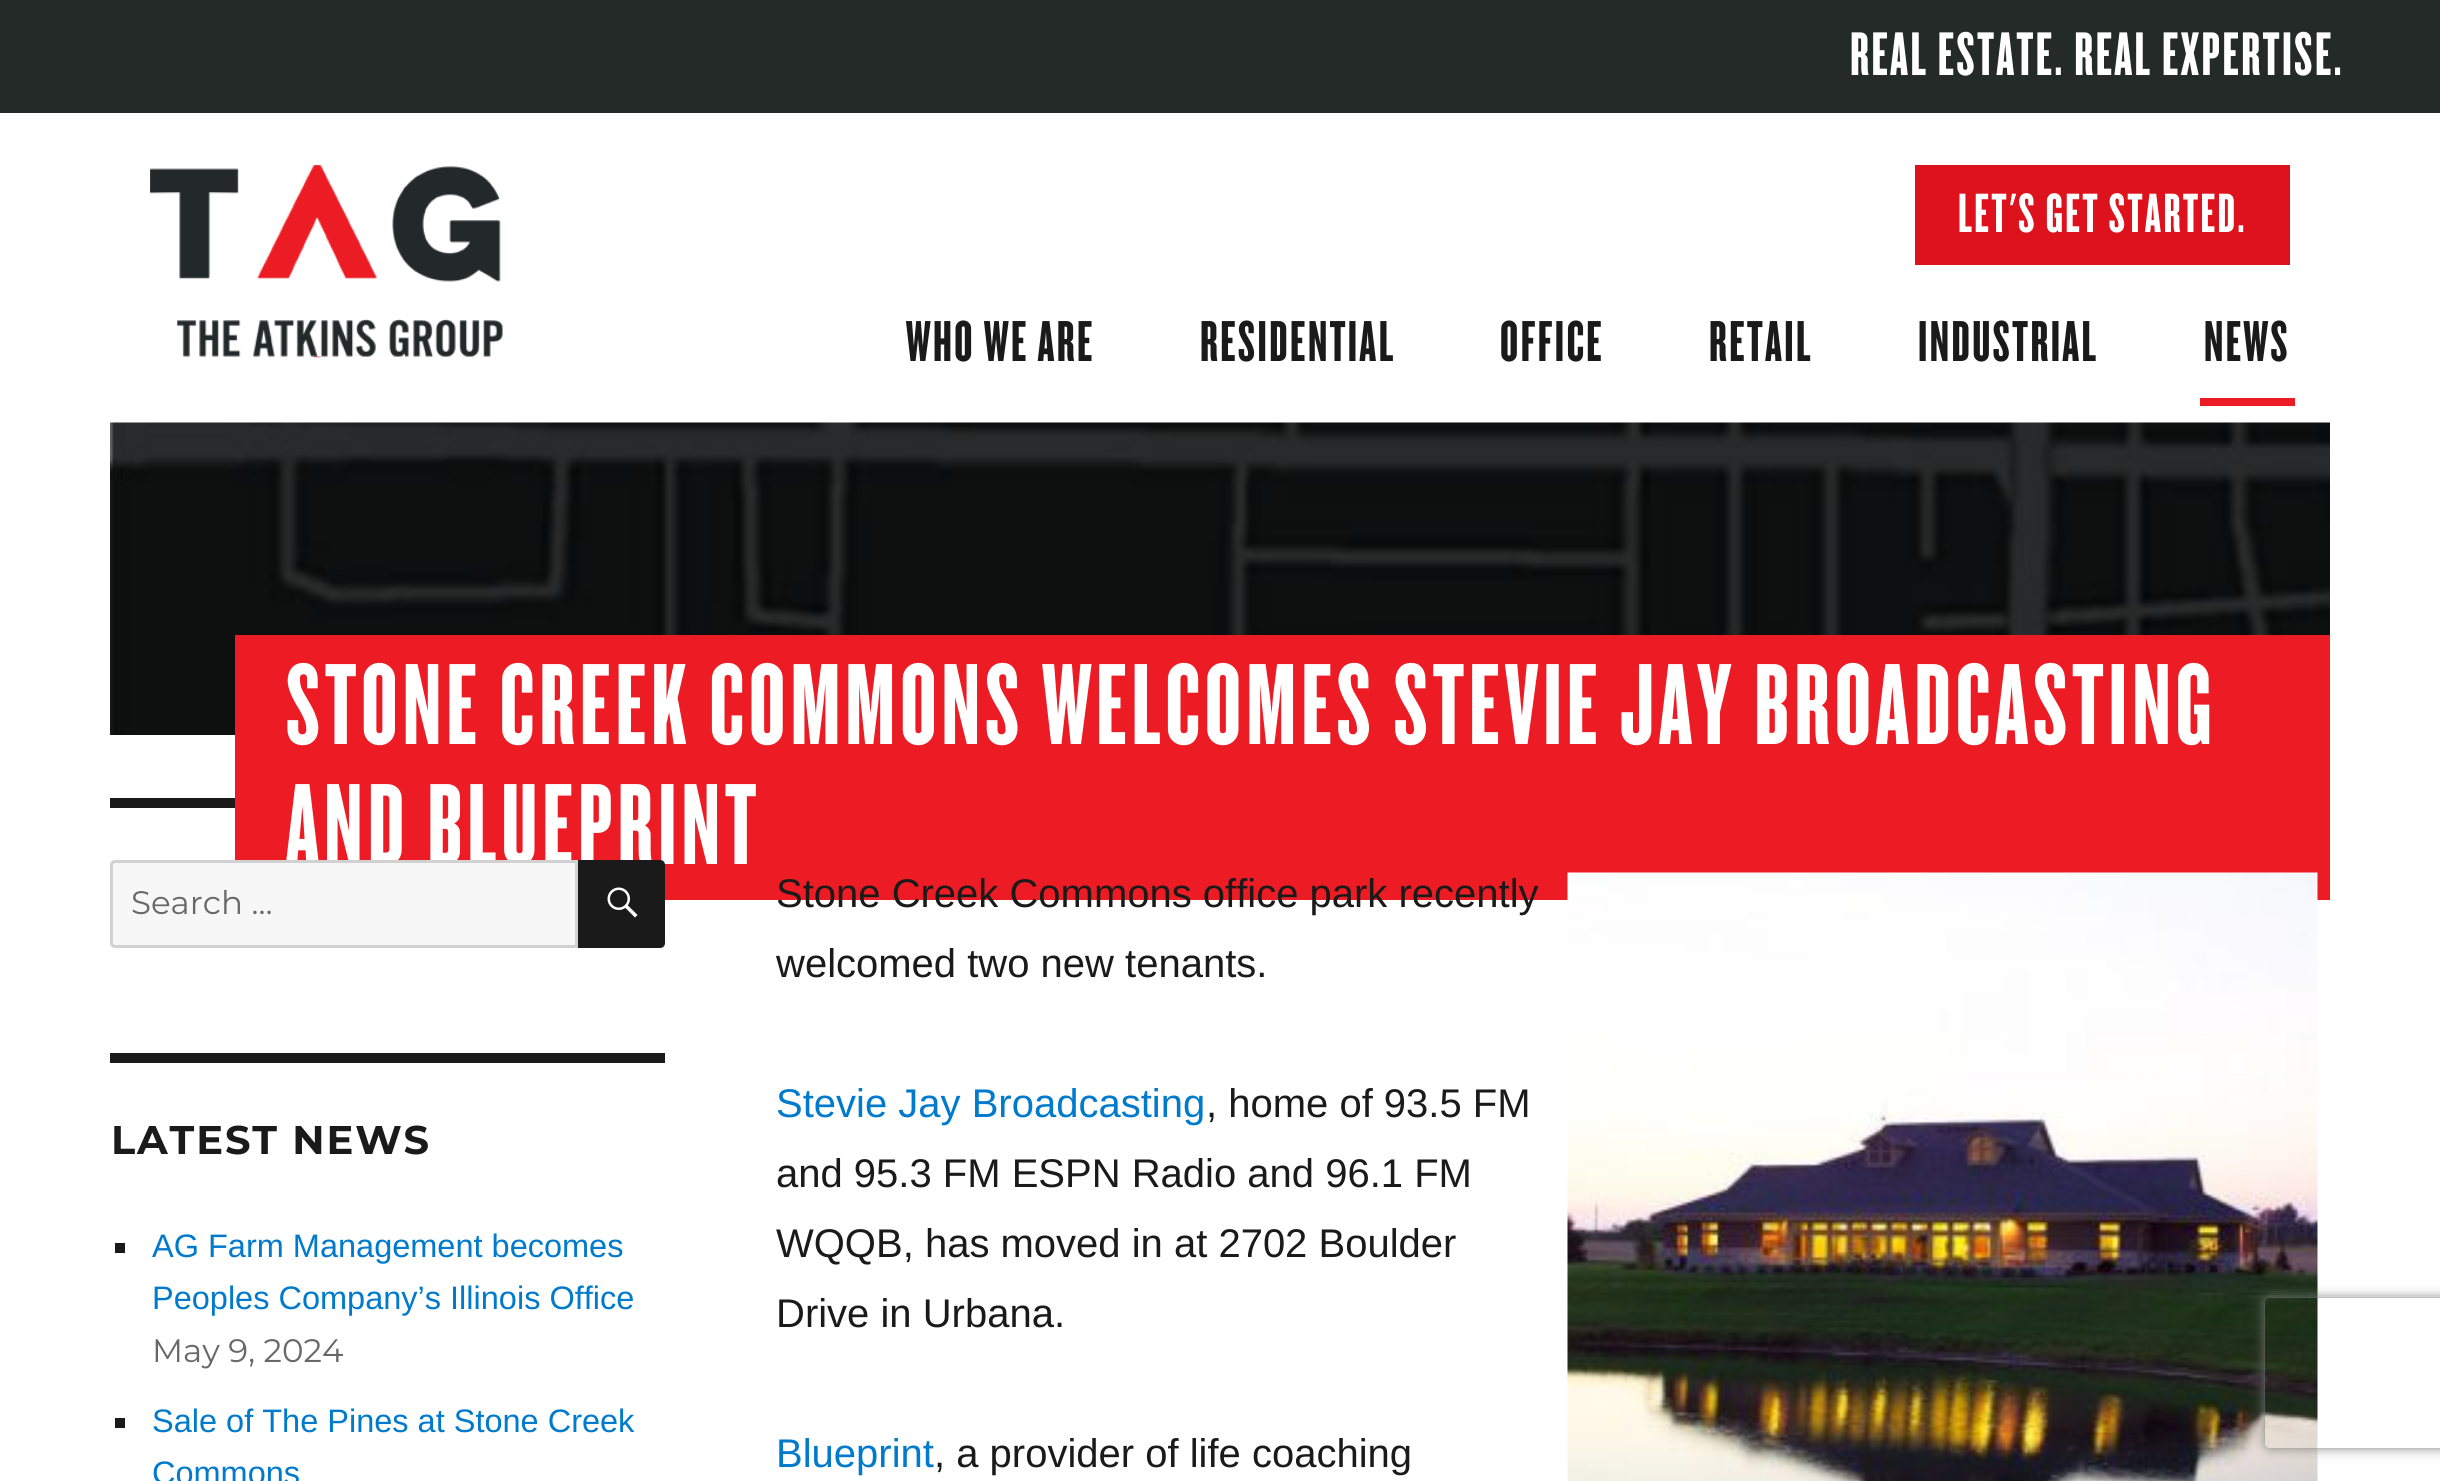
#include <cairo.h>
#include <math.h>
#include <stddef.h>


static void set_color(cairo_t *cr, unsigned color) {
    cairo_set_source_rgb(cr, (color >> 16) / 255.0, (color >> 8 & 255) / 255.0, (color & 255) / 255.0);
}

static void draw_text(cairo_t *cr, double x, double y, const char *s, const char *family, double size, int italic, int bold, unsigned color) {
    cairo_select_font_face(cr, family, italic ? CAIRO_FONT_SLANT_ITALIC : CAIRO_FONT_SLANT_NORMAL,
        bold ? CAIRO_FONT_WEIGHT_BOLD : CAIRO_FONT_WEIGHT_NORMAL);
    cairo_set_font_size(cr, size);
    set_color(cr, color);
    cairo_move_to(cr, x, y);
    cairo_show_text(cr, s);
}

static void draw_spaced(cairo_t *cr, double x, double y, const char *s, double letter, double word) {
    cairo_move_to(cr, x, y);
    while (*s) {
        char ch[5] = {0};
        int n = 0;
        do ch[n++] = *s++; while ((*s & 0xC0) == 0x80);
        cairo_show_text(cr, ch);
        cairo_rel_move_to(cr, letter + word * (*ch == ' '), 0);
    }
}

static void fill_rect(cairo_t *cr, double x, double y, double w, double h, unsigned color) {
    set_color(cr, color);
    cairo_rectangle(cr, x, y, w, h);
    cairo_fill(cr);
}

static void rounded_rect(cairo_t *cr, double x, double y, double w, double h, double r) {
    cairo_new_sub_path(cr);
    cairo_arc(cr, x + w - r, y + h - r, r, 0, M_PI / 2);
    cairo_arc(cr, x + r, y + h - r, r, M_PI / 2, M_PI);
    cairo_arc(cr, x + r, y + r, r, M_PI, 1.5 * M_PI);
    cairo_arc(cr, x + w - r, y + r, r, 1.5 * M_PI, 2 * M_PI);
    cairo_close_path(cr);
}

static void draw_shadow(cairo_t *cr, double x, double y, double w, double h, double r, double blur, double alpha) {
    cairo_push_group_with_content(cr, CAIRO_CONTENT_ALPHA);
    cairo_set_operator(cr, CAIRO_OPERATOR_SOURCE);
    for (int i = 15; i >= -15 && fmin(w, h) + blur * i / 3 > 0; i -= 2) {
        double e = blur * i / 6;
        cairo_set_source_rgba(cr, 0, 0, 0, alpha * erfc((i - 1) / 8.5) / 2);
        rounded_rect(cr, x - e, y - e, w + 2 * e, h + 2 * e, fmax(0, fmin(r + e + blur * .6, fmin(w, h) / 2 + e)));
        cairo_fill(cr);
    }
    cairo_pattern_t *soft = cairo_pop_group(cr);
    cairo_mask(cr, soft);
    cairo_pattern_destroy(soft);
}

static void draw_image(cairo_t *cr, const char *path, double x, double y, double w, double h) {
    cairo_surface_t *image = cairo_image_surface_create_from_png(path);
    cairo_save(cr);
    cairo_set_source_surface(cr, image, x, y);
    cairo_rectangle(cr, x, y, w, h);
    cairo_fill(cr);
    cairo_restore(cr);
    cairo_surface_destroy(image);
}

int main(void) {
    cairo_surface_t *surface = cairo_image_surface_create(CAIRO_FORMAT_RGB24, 2440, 1481);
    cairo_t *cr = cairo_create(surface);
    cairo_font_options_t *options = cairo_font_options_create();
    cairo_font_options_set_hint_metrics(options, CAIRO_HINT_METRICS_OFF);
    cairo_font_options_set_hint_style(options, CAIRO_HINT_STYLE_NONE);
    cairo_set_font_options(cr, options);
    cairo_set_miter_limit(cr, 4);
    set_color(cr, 0xFFFFFF);
    cairo_paint(cr);
    fill_rect(cr, 0, 0, 2440, 113, 0x242A28);
    cairo_select_font_face(cr, "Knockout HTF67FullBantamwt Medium", CAIRO_FONT_SLANT_NORMAL, CAIRO_FONT_WEIGHT_NORMAL);
    cairo_set_font_size(cr, 64);
    set_color(cr, 0xFFFFFF);
    draw_spaced(cr, 1850, 75, "REAL ESTATE. REAL EXPERTISE.", 2.5, 0);
    draw_image(cr, "assets/img1.png", 150, 165, 353, 193);
    fill_rect(cr, 1915, 165, 375, 100, 0xDE121C);
    cairo_set_font_size(cr, 57.5);
    set_color(cr, 0xFFFFFF);
    draw_spaced(cr, 1958, 232, "LET'S GET STARTED.", 2.5, 0);
    cairo_set_font_size(cr, 60);
    set_color(cr, 0x1A1A1A);
    draw_spaced(cr, 906, 361, "WHO WE ARE", 2.5, 0);
    draw_spaced(cr, 1200, 361, "RESIDENTIAL", 2.5, 0);
    draw_spaced(cr, 1500, 361, "OFFICE", 2.5, 0);
    draw_spaced(cr, 1709, 361, "RETAIL", 2.5, 0);
    draw_spaced(cr, 1918, 361, "INDUSTRIAL", 2.5, 0);
    draw_spaced(cr, 2204, 361, "NEWS", 2.5, 0);
    fill_rect(cr, 2200, 398, 95, 8, 0xED1C24);
    draw_image(cr, "assets/img2.png", 110, 422, 2220, 313);
    fill_rect(cr, 235, 635, 2095, 265, 0xED1C24);
    cairo_set_font_size(cr, 120);
    set_color(cr, 0xFFFFFF);
    draw_spaced(cr, 286, 744, "STONE CREEK COMMONS WELCOMES STEVIE JAY BROADCASTING", 5, 0);
    draw_spaced(cr, 286, 864, "AND BLUEPRINT", 5, 0);
    fill_rect(cr, 110, 798, 125, 10, 0x1A1A1A);
    set_color(cr, 0xF7F7F7);
    cairo_new_path(cr);
    cairo_move_to(cr, 115, 861.5);
    cairo_line_to(cr, 576.5, 861.5);
    cairo_line_to(cr, 576.5, 946.5);
    cairo_line_to(cr, 115, 946.5);
    cairo_curve_to(cr, 113, 946.5, 111.5, 945, 111.5, 943);
    cairo_line_to(cr, 111.5, 865);
    cairo_curve_to(cr, 111.5, 863, 113, 861.5, 115, 861.5);
    cairo_close_path(cr);
    cairo_fill_preserve(cr);
    set_color(cr, 0xD1D1D1);
    cairo_set_line_width(cr, 3);
    cairo_stroke(cr);
    draw_text(cr, 131, 914, "Search …", "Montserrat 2 Thin", 32.5, 0, 0, 0x686868);
    set_color(cr, 0x1A1A1A);
    cairo_new_path(cr);
    cairo_move_to(cr, 578, 860);
    cairo_line_to(cr, 660, 860);
    cairo_curve_to(cr, 663, 860, 665, 862, 665, 865);
    cairo_line_to(cr, 665, 943);
    cairo_curve_to(cr, 665, 946, 663, 948, 660, 948);
    cairo_line_to(cr, 578, 948);
    cairo_close_path(cr);
    cairo_fill(cr);
    draw_image(cr, "assets/img3.png", 607, 887, 31, 31);
    fill_rect(cr, 110, 1053, 555, 10, 0x1A1A1A);
    cairo_select_font_face(cr, "Montserrat Thin", CAIRO_FONT_SLANT_NORMAL, CAIRO_FONT_WEIGHT_NORMAL);
    cairo_set_font_size(cr, 40);
    draw_spaced(cr, 111, 1154, "LATEST NEWS", 1.9, 0);
    fill_rect(cr, 115, 1243, 10, 10, 0x1A1A1A);
    draw_text(cr, 152, 1257, "AG Farm Management becomes", "Liberation Sans", 32.5, 0, 0, 0x007ACC);
    draw_text(cr, 152, 1309, "Peoples Company’s Illinois Office", "Liberation Sans", 32.5, 0, 0, 0x007ACC);
    draw_text(cr, 152, 1362, "May 9, 2024", "Montserrat 2 Thin", 32.5, 0, 0, 0x686868);
    fill_rect(cr, 115, 1418, 10, 10, 0x1A1A1A);
    draw_text(cr, 152, 1432, "Sale of The Pines at Stone Creek", "Liberation Sans", 32.5, 0, 0, 0x007ACC);
    draw_text(cr, 152, 1484, "Commons", "Liberation Sans", 32.5, 0, 0, 0x007ACC);
    draw_text(cr, 776, 907, "Stone Creek Commons office park recently", "Liberation Sans", 40, 0, 0, 0x1A1A1A);
    draw_text(cr, 776, 977, "welcomed two new tenants.", "Liberation Sans", 40, 0, 0, 0x1A1A1A);
    draw_text(cr, 776, 1117, "Stevie Jay Broadcasting", "Liberation Sans", 40, 0, 0, 0x007ACC);
    draw_text(cr, 1206, 1117, ", home of 93.5 FM", "Liberation Sans", 40, 0, 0, 0x1A1A1A);
    draw_text(cr, 776, 1187, "and 95.3 FM ESPN Radio and 96.1 FM", "Liberation Sans", 40, 0, 0, 0x1A1A1A);
    draw_text(cr, 776, 1257, "WQQB, has moved in at 2702 Boulder", "Liberation Sans", 40, 0, 0, 0x1A1A1A);
    draw_text(cr, 776, 1327, "Drive in Urbana.", "Liberation Sans", 40, 0, 0, 0x1A1A1A);
    draw_text(cr, 776, 1467, "Blueprint", "Liberation Sans", 40, 0, 0, 0x007ACC);
    draw_text(cr, 934, 1467, ", a provider of life coaching", "Liberation Sans", 40, 0, 0, 0x1A1A1A);
    draw_image(cr, "assets/img4.png", 1567, 872, 751, 609);
    cairo_save(cr);
    cairo_set_fill_rule(cr, CAIRO_FILL_RULE_EVEN_ODD);
    cairo_new_path(cr);
    cairo_move_to(cr, 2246, 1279);
    cairo_line_to(cr, 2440, 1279);
    cairo_line_to(cr, 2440, 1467);
    cairo_line_to(cr, 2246, 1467);
    cairo_close_path(cr);
    cairo_move_to(cr, 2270, 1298);
    cairo_line_to(cr, 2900, 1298);
    cairo_curve_to(cr, 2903, 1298, 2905, 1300, 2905, 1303);
    cairo_line_to(cr, 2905, 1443);
    cairo_curve_to(cr, 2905, 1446, 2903, 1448, 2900, 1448);
    cairo_line_to(cr, 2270, 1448);
    cairo_curve_to(cr, 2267, 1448, 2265, 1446, 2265, 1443);
    cairo_line_to(cr, 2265, 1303);
    cairo_curve_to(cr, 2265, 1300, 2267, 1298, 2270, 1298);
    cairo_close_path(cr);
    cairo_clip(cr);
    set_color(cr, 0x808080);
    draw_shadow(cr, 2265, 1298, 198, 150, 5, 6, 1);
    cairo_restore(cr);
    cairo_surface_write_to_png(surface, "output.png");
    cairo_font_options_destroy(options);
    cairo_destroy(cr);
    cairo_surface_destroy(surface);
    return 0;
}
